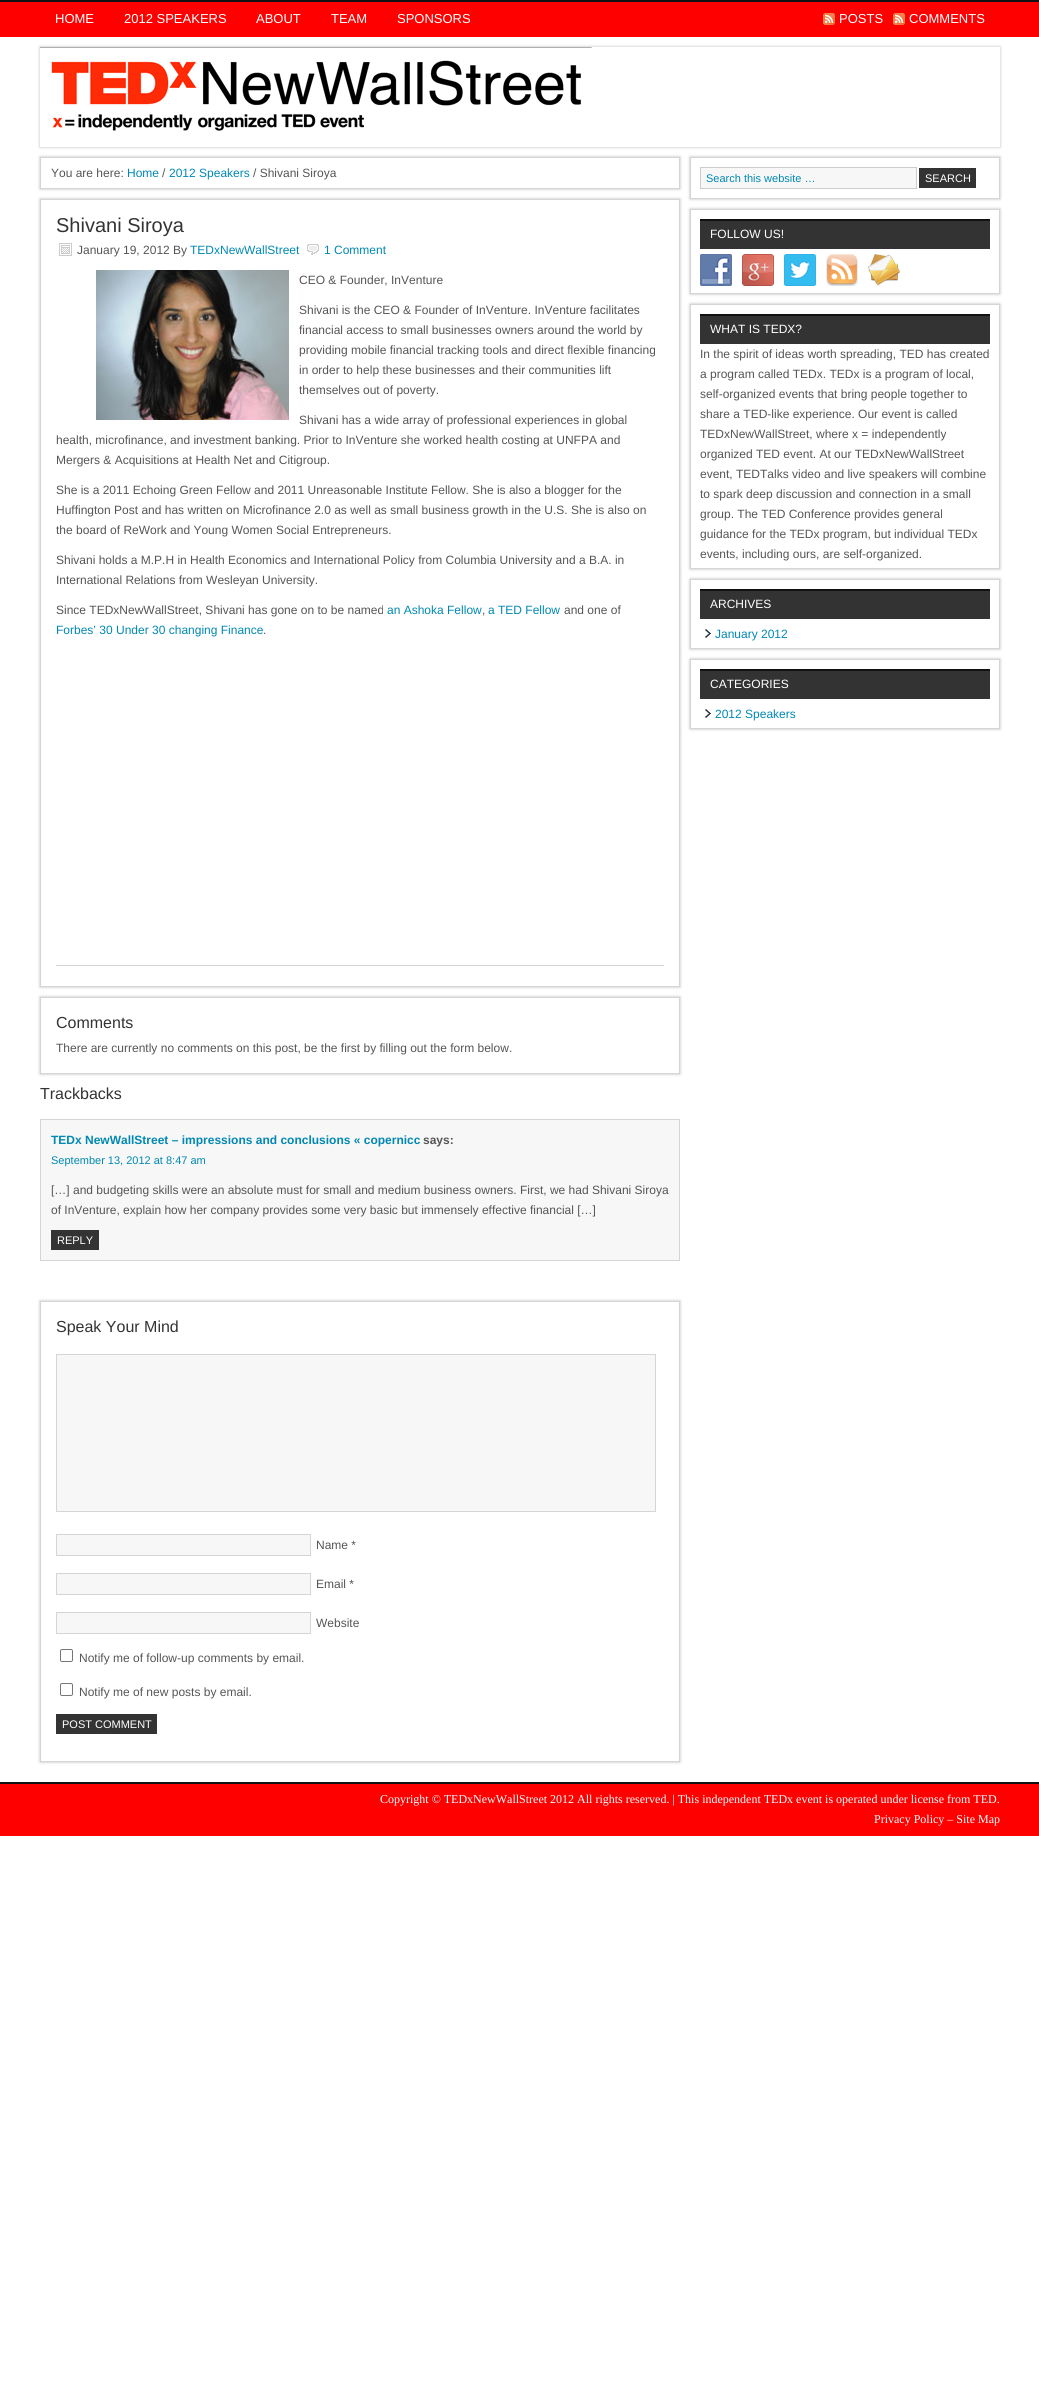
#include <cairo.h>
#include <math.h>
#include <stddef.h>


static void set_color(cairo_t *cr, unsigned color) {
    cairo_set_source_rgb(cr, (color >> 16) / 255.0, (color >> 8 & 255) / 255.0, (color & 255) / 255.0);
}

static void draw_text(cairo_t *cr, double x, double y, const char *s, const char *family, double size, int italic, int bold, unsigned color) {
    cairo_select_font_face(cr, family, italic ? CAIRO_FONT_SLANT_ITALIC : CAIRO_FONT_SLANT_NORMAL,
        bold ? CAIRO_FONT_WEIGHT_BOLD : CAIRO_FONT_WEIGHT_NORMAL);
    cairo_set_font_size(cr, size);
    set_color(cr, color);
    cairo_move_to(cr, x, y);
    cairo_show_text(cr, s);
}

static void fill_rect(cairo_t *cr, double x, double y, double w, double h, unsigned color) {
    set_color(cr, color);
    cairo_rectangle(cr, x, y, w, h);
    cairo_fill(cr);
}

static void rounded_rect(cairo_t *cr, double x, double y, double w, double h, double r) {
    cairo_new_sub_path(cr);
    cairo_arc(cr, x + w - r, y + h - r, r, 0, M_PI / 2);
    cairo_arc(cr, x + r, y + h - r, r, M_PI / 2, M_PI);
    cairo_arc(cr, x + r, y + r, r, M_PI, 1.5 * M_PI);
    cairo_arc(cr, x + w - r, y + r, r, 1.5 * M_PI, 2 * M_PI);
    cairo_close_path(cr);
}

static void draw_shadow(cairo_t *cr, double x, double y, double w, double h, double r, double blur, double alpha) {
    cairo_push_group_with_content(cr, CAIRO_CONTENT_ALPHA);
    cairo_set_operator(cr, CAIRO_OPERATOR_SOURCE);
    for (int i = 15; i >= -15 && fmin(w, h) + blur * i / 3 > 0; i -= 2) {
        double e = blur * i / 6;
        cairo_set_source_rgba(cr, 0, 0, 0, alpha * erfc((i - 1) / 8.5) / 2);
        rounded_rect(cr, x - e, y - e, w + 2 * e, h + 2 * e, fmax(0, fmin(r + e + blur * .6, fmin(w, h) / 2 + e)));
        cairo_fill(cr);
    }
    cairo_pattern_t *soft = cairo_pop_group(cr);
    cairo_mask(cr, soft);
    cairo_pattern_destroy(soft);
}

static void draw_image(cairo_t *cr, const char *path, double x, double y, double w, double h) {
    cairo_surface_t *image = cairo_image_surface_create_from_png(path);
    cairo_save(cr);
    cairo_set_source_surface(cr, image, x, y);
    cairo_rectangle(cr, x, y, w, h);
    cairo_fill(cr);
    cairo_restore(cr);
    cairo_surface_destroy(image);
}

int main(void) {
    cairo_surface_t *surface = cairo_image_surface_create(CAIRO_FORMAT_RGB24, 1039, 2389);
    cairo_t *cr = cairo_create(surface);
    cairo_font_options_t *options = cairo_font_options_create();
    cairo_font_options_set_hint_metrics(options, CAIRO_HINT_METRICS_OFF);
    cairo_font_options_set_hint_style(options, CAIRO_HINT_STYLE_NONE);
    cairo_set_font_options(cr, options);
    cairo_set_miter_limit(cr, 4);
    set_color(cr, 0xFFFFFF);
    cairo_paint(cr);
    fill_rect(cr, 0, 2, 1039, 35, 0xFE0000);
    fill_rect(cr, 0, 0, 1039, 2, 0x111111);
    draw_text(cr, 55, 23, "HOME", "Liberation Sans", 13, 0, 0, 0xFFFFFF);
    draw_text(cr, 124, 23, "2012 SPEAKERS", "Liberation Sans", 13, 0, 0, 0xFFFFFF);
    draw_text(cr, 256, 23, "ABOUT", "Liberation Sans", 13, 0, 0, 0xFFFFFF);
    draw_text(cr, 331, 23, "TEAM", "Liberation Sans", 13, 0, 0, 0xFFFFFF);
    draw_text(cr, 397, 23, "SPONSORS", "Liberation Sans", 13, 0, 0, 0xFFFFFF);
    draw_image(cr, "assets/img1.png", 823, 13, 12, 12);
    draw_text(cr, 839, 23, "POSTS", "Liberation Sans", 13, 0, 0, 0xFFFFFF);
    draw_image(cr, "assets/img1.png", 893, 13, 12, 12);
    draw_text(cr, 909, 23, "COMMENTS", "Liberation Sans", 13, 0, 0, 0xFFFFFF);
    cairo_save(cr);
    cairo_set_fill_rule(cr, CAIRO_FILL_RULE_EVEN_ODD);
    cairo_new_path(cr);
    cairo_move_to(cr, 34, 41);
    cairo_line_to(cr, 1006, 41);
    cairo_line_to(cr, 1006, 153);
    cairo_line_to(cr, 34, 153);
    cairo_close_path(cr);
    cairo_move_to(cr, 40, 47);
    cairo_line_to(cr, 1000, 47);
    cairo_line_to(cr, 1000, 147);
    cairo_line_to(cr, 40, 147);
    cairo_close_path(cr);
    cairo_clip(cr);
    set_color(cr, 0xBBBBBB);
    draw_shadow(cr, 40, 47, 960, 100, 0, 1.5, 1);
    cairo_restore(cr);
    draw_image(cr, "assets/img2.png", 40, 47, 552, 84);
    cairo_save(cr);
    cairo_set_fill_rule(cr, CAIRO_FILL_RULE_EVEN_ODD);
    cairo_new_path(cr);
    cairo_move_to(cr, 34, 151);
    cairo_line_to(cr, 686, 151);
    cairo_line_to(cr, 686, 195);
    cairo_line_to(cr, 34, 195);
    cairo_close_path(cr);
    cairo_move_to(cr, 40, 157);
    cairo_line_to(cr, 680, 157);
    cairo_line_to(cr, 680, 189);
    cairo_line_to(cr, 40, 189);
    cairo_close_path(cr);
    cairo_clip(cr);
    set_color(cr, 0xBBBBBB);
    draw_shadow(cr, 40, 157, 640, 32, 0, 1.5, 1);
    cairo_restore(cr);
    cairo_rectangle(cr, 40.5, 157.5, 639, 31);
    set_color(cr, 0xD5D5D5);
    cairo_set_line_width(cr, 1);
    cairo_stroke(cr);
    draw_text(cr, 51, 177, "You are here:", "Liberation Sans", 12, 0, 0, 0x555555);
    draw_text(cr, 127, 177, "Home", "Liberation Sans", 12, 0, 0, 0x0088B3);
    draw_text(cr, 162, 177, "/", "Liberation Sans", 12, 0, 0, 0x555555);
    draw_text(cr, 169, 177, "2012 Speakers", "Liberation Sans", 12, 0, 0, 0x0088B3);
    draw_text(cr, 253, 177, "/ Shivani Siroya", "Liberation Sans", 12, 0, 0, 0x555555);
    cairo_save(cr);
    cairo_set_fill_rule(cr, CAIRO_FILL_RULE_EVEN_ODD);
    cairo_new_path(cr);
    cairo_move_to(cr, 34, 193);
    cairo_line_to(cr, 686, 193);
    cairo_line_to(cr, 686, 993);
    cairo_line_to(cr, 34, 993);
    cairo_close_path(cr);
    cairo_move_to(cr, 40, 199);
    cairo_line_to(cr, 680, 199);
    cairo_line_to(cr, 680, 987);
    cairo_line_to(cr, 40, 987);
    cairo_close_path(cr);
    cairo_clip(cr);
    set_color(cr, 0xBBBBBB);
    draw_shadow(cr, 40, 199, 640, 788, 0, 1.5, 1);
    cairo_restore(cr);
    cairo_rectangle(cr, 40.5, 199.5, 639, 787);
    set_color(cr, 0xD5D5D5);
    cairo_stroke(cr);
    draw_text(cr, 56, 232, "Shivani Siroya", "Liberation Sans", 20, 0, 0, 0x333333);
    draw_image(cr, "assets/img3.png", 59, 243, 13, 13);
    draw_text(cr, 77, 254, "January 19, 2012 By", "Liberation Sans", 12, 0, 0, 0x555555);
    draw_text(cr, 190, 254, "TEDxNewWallStreet", "Liberation Sans", 12, 0, 0, 0x0088B3);
    draw_image(cr, "assets/img4.png", 307, 244, 12, 11);
    draw_text(cr, 324, 254, "1 Comment", "Liberation Sans", 12, 0, 0, 0x0088B3);
    draw_image(cr, "assets/img5.png", 96, 270, 193, 150);
    draw_text(cr, 299, 284, "CEO & Founder, InVenture", "Liberation Sans", 12, 0, 0, 0x555555);
    draw_text(cr, 299, 314, "Shivani is the CEO & Founder of InVenture. InVenture facilitates", "Liberation Sans", 12, 0, 0, 0x555555);
    draw_text(cr, 299, 334, "financial access to small businesses owners around the world by", "Liberation Sans", 12, 0, 0, 0x555555);
    draw_text(cr, 299, 354, "providing mobile financial tracking tools and direct flexible financing", "Liberation Sans", 12, 0, 0, 0x555555);
    draw_text(cr, 299, 374, "in order to help these businesses and their communities lift", "Liberation Sans", 12, 0, 0, 0x555555);
    draw_text(cr, 299, 394, "themselves out of poverty.", "Liberation Sans", 12, 0, 0, 0x555555);
    draw_text(cr, 299, 424, "Shivani has a wide array of professional experiences in global", "Liberation Sans", 12, 0, 0, 0x555555);
    draw_text(cr, 56, 444, "health, microfinance, and investment banking. Prior to InVenture she worked health costing at UNFPA and", "Liberation Sans", 12, 0, 0, 0x555555);
    draw_text(cr, 56, 464, "Mergers & Acquisitions at Health Net and Citigroup.", "Liberation Sans", 12, 0, 0, 0x555555);
    draw_text(cr, 56, 494, "She is a 2011 Echoing Green Fellow and 2011 Unreasonable Institute Fellow. She is also a blogger for the", "Liberation Sans", 12, 0, 0, 0x555555);
    draw_text(cr, 56, 514, "Huffington Post and has written on Microfinance 2.0 as well as small business growth in the U.S. She is also on", "Liberation Sans", 12, 0, 0, 0x555555);
    draw_text(cr, 56, 534, "the board of ReWork and Young Women Social Entrepreneurs.", "Liberation Sans", 12, 0, 0, 0x555555);
    draw_text(cr, 56, 564, "Shivani holds a M.P.H in Health Economics and International Policy from Columbia University and a B.A. in", "Liberation Sans", 12, 0, 0, 0x555555);
    draw_text(cr, 56, 584, "International Relations from Wesleyan University.", "Liberation Sans", 12, 0, 0, 0x555555);
    draw_text(cr, 56, 614, "Since TEDxNewWallStreet, Shivani has gone on to be named", "Liberation Sans", 12, 0, 0, 0x555555);
    draw_text(cr, 387, 614, "an Ashoka Fellow", "Liberation Sans", 12, 0, 0, 0x0088B3);
    draw_text(cr, 482, 614, ",", "Liberation Sans", 12, 0, 0, 0x555555);
    draw_text(cr, 488, 614, "a TED Fellow", "Liberation Sans", 12, 0, 0, 0x0088B3);
    draw_text(cr, 564, 614, "and one of", "Liberation Sans", 12, 0, 0, 0x555555);
    draw_text(cr, 56, 634, "Forbes’ 30 Under 30 changing Finance", "Liberation Sans", 12, 0, 0, 0x0088B3);
    draw_text(cr, 263, 634, ".", "Liberation Sans", 12, 0, 0, 0x555555);
    fill_rect(cr, 56, 965, 608, 1, 0xD5D5D5);
    cairo_save(cr);
    cairo_set_fill_rule(cr, CAIRO_FILL_RULE_EVEN_ODD);
    cairo_new_path(cr);
    cairo_move_to(cr, 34, 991);
    cairo_line_to(cr, 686, 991);
    cairo_line_to(cr, 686, 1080);
    cairo_line_to(cr, 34, 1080);
    cairo_close_path(cr);
    cairo_move_to(cr, 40, 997);
    cairo_line_to(cr, 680, 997);
    cairo_line_to(cr, 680, 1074);
    cairo_line_to(cr, 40, 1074);
    cairo_close_path(cr);
    cairo_clip(cr);
    set_color(cr, 0xBBBBBB);
    draw_shadow(cr, 40, 997, 640, 77, 0, 1.5, 1);
    cairo_restore(cr);
    cairo_rectangle(cr, 40.5, 997.5, 639, 76);
    cairo_stroke(cr);
    draw_text(cr, 56, 1028, "Comments", "Liberation Sans", 16, 0, 0, 0x333333);
    draw_text(cr, 56, 1052, "There are currently no comments on this post, be the first by filling out the form below.", "Liberation Sans", 12, 0, 0, 0x555555);
    draw_text(cr, 40, 1099, "Trackbacks", "Liberation Sans", 16, 0, 0, 0x333333);
    set_color(cr, 0xF7F7F7);
    cairo_rectangle(cr, 40.5, 1119.5, 639, 141);
    cairo_fill_preserve(cr);
    set_color(cr, 0xD5D5D5);
    cairo_stroke(cr);
    draw_text(cr, 51, 1144, "TEDx NewWallStreet – impressions and conclusions « copernicc", "Liberation Sans", 12, 0, 1, 0x0088B3);
    draw_text(cr, 423, 1144, "says:", "Liberation Sans", 12, 0, 1, 0x555555);
    draw_text(cr, 51, 1164, "September 13, 2012 at 8:47 am", "Liberation Sans", 11, 0, 0, 0x0088B3);
    draw_text(cr, 51, 1194, "[…] and budgeting skills were an absolute must for small and medium business owners. First, we had Shivani Siroya", "Liberation Sans", 12, 0, 0, 0x555555);
    draw_text(cr, 51, 1214, "of InVenture, explain how her company provides some very basic but immensely effective financial […]", "Liberation Sans", 12, 0, 0, 0x555555);
    fill_rect(cr, 51, 1230, 48, 20, 0x333333);
    draw_text(cr, 57, 1244, "REPLY", "Liberation Sans", 11, 0, 0, 0xFFFFFF);
    cairo_save(cr);
    cairo_set_fill_rule(cr, CAIRO_FILL_RULE_EVEN_ODD);
    cairo_new_path(cr);
    cairo_move_to(cr, 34, 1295);
    cairo_line_to(cr, 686, 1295);
    cairo_line_to(cr, 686, 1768);
    cairo_line_to(cr, 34, 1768);
    cairo_close_path(cr);
    cairo_move_to(cr, 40, 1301);
    cairo_line_to(cr, 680, 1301);
    cairo_line_to(cr, 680, 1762);
    cairo_line_to(cr, 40, 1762);
    cairo_close_path(cr);
    cairo_clip(cr);
    set_color(cr, 0xBBBBBB);
    draw_shadow(cr, 40, 1301, 640, 461, 0, 1.5, 1);
    cairo_restore(cr);
    cairo_rectangle(cr, 40.5, 1301.5, 639, 460);
    set_color(cr, 0xD5D5D5);
    cairo_stroke(cr);
    draw_text(cr, 56, 1332, "Speak Your Mind", "Liberation Sans", 16, 0, 0, 0x333333);
    set_color(cr, 0xF7F7F7);
    cairo_rectangle(cr, 56.5, 1354.5, 599, 157);
    cairo_fill_preserve(cr);
    set_color(cr, 0xD5D5D5);
    cairo_stroke(cr);
    set_color(cr, 0xF7F7F7);
    cairo_rectangle(cr, 56.5, 1534.5, 254, 21);
    cairo_fill_preserve(cr);
    set_color(cr, 0xD5D5D5);
    cairo_stroke(cr);
    draw_text(cr, 316, 1549, "Name *", "Liberation Sans", 12, 0, 0, 0x555555);
    set_color(cr, 0xF7F7F7);
    cairo_rectangle(cr, 56.5, 1573.5, 254, 21);
    cairo_fill_preserve(cr);
    set_color(cr, 0xD5D5D5);
    cairo_stroke(cr);
    draw_text(cr, 316, 1588, "Email *", "Liberation Sans", 12, 0, 0, 0x555555);
    set_color(cr, 0xF7F7F7);
    cairo_rectangle(cr, 56.5, 1612.5, 254, 21);
    cairo_fill_preserve(cr);
    set_color(cr, 0xD5D5D5);
    cairo_stroke(cr);
    draw_text(cr, 316, 1627, "Website", "Liberation Sans", 12, 0, 0, 0x555555);
    rounded_rect(cr, 60.5, 1649.5, 12, 12, 1.5);
    set_color(cr, 0x767676);
    cairo_stroke(cr);
    draw_text(cr, 79, 1662, "Notify me of follow-up comments by email.", "Liberation Sans", 12, 0, 0, 0x555555);
    rounded_rect(cr, 60.5, 1683.5, 12, 12, 1.5);
    set_color(cr, 0x767676);
    cairo_stroke(cr);
    draw_text(cr, 79, 1696, "Notify me of new posts by email.", "Liberation Sans", 12, 0, 0, 0x555555);
    fill_rect(cr, 56, 1714, 101, 20, 0x333333);
    draw_text(cr, 62, 1728, "POST COMMENT", "Liberation Sans", 11, 0, 0, 0xFFFFFF);
    cairo_save(cr);
    cairo_set_fill_rule(cr, CAIRO_FILL_RULE_EVEN_ODD);
    cairo_new_path(cr);
    cairo_move_to(cr, 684, 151);
    cairo_line_to(cr, 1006, 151);
    cairo_line_to(cr, 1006, 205);
    cairo_line_to(cr, 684, 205);
    cairo_close_path(cr);
    cairo_move_to(cr, 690, 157);
    cairo_line_to(cr, 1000, 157);
    cairo_line_to(cr, 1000, 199);
    cairo_line_to(cr, 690, 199);
    cairo_close_path(cr);
    cairo_clip(cr);
    set_color(cr, 0xBBBBBB);
    draw_shadow(cr, 690, 157, 310, 42, 0, 1.5, 1);
    cairo_restore(cr);
    cairo_rectangle(cr, 690.5, 157.5, 309, 41);
    set_color(cr, 0xD5D5D5);
    cairo_stroke(cr);
    set_color(cr, 0xF7F7F7);
    cairo_rectangle(cr, 700.5, 167.5, 216, 21);
    cairo_fill_preserve(cr);
    set_color(cr, 0xCCCCCC);
    cairo_stroke(cr);
    draw_text(cr, 706, 182, "Search this website …", "Liberation Sans", 11, 0, 0, 0x0088B3);
    fill_rect(cr, 919, 168, 57, 20, 0x333333);
    draw_text(cr, 925, 182, "SEARCH", "Liberation Sans", 11, 0, 0, 0xFFFFFF);
    cairo_save(cr);
    cairo_set_fill_rule(cr, CAIRO_FILL_RULE_EVEN_ODD);
    cairo_new_path(cr);
    cairo_move_to(cr, 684, 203);
    cairo_line_to(cr, 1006, 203);
    cairo_line_to(cr, 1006, 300);
    cairo_line_to(cr, 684, 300);
    cairo_close_path(cr);
    cairo_move_to(cr, 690, 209);
    cairo_line_to(cr, 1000, 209);
    cairo_line_to(cr, 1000, 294);
    cairo_line_to(cr, 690, 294);
    cairo_close_path(cr);
    cairo_clip(cr);
    set_color(cr, 0xBBBBBB);
    draw_shadow(cr, 690, 209, 310, 85, 0, 1.5, 1);
    cairo_restore(cr);
    cairo_rectangle(cr, 690.5, 209.5, 309, 84);
    set_color(cr, 0xD5D5D5);
    cairo_stroke(cr);
    fill_rect(cr, 700, 221, 290, 28, 0x333333);
    fill_rect(cr, 700, 219, 290, 2, 0x111111);
    draw_text(cr, 710, 238, "FOLLOW US!", "Liberation Sans", 12, 0, 0, 0xFFFFFF);
    draw_image(cr, "assets/img6.png", 700, 254, 32, 32);
    draw_image(cr, "assets/img7.png", 742, 254, 32, 32);
    draw_image(cr, "assets/img8.png", 784, 254, 32, 32);
    draw_image(cr, "assets/img9.png", 826, 254, 32, 32);
    draw_image(cr, "assets/img10.png", 868, 254, 32, 32);
    cairo_save(cr);
    cairo_set_fill_rule(cr, CAIRO_FILL_RULE_EVEN_ODD);
    cairo_new_path(cr);
    cairo_move_to(cr, 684, 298);
    cairo_line_to(cr, 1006, 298);
    cairo_line_to(cr, 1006, 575);
    cairo_line_to(cr, 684, 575);
    cairo_close_path(cr);
    cairo_move_to(cr, 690, 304);
    cairo_line_to(cr, 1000, 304);
    cairo_line_to(cr, 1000, 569);
    cairo_line_to(cr, 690, 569);
    cairo_close_path(cr);
    cairo_clip(cr);
    set_color(cr, 0xBBBBBB);
    draw_shadow(cr, 690, 304, 310, 265, 0, 1.5, 1);
    cairo_restore(cr);
    cairo_rectangle(cr, 690.5, 304.5, 309, 264);
    set_color(cr, 0xD5D5D5);
    cairo_stroke(cr);
    fill_rect(cr, 700, 316, 290, 28, 0x333333);
    fill_rect(cr, 700, 314, 290, 2, 0x111111);
    draw_text(cr, 710, 333, "WHAT IS TEDX?", "Liberation Sans", 12, 0, 0, 0xFFFFFF);
    draw_text(cr, 700, 358, "In the spirit of ideas worth spreading, TED has created", "Liberation Sans", 12, 0, 0, 0x555555);
    draw_text(cr, 700, 378, "a program called TEDx. TEDx is a program of local,", "Liberation Sans", 12, 0, 0, 0x555555);
    draw_text(cr, 700, 398, "self-organized events that bring people together to", "Liberation Sans", 12, 0, 0, 0x555555);
    draw_text(cr, 700, 418, "share a TED-like experience. Our event is called", "Liberation Sans", 12, 0, 0, 0x555555);
    draw_text(cr, 700, 438, "TEDxNewWallStreet, where x = independently", "Liberation Sans", 12, 0, 0, 0x555555);
    draw_text(cr, 700, 458, "organized TED event. At our TEDxNewWallStreet", "Liberation Sans", 12, 0, 0, 0x555555);
    draw_text(cr, 700, 478, "event, TEDTalks video and live speakers will combine", "Liberation Sans", 12, 0, 0, 0x555555);
    draw_text(cr, 700, 498, "to spark deep discussion and connection in a small", "Liberation Sans", 12, 0, 0, 0x555555);
    draw_text(cr, 700, 518, "group. The TED Conference provides general", "Liberation Sans", 12, 0, 0, 0x555555);
    draw_text(cr, 700, 538, "guidance for the TEDx program, but individual TEDx", "Liberation Sans", 12, 0, 0, 0x555555);
    draw_text(cr, 700, 558, "events, including ours, are self-organized.", "Liberation Sans", 12, 0, 0, 0x555555);
    cairo_save(cr);
    cairo_set_fill_rule(cr, CAIRO_FILL_RULE_EVEN_ODD);
    cairo_new_path(cr);
    cairo_move_to(cr, 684, 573);
    cairo_line_to(cr, 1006, 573);
    cairo_line_to(cr, 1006, 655);
    cairo_line_to(cr, 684, 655);
    cairo_close_path(cr);
    cairo_move_to(cr, 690, 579);
    cairo_line_to(cr, 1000, 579);
    cairo_line_to(cr, 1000, 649);
    cairo_line_to(cr, 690, 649);
    cairo_close_path(cr);
    cairo_clip(cr);
    set_color(cr, 0xBBBBBB);
    draw_shadow(cr, 690, 579, 310, 70, 0, 1.5, 1);
    cairo_restore(cr);
    cairo_rectangle(cr, 690.5, 579.5, 309, 69);
    set_color(cr, 0xD5D5D5);
    cairo_stroke(cr);
    fill_rect(cr, 700, 591, 290, 28, 0x333333);
    fill_rect(cr, 700, 589, 290, 2, 0x111111);
    draw_text(cr, 710, 608, "ARCHIVES", "Liberation Sans", 12, 0, 0, 0xFFFFFF);
    draw_image(cr, "assets/img11.png", 705, 629, 6, 9);
    draw_text(cr, 715, 638, "January 2012", "Liberation Sans", 12, 0, 0, 0x0088B3);
    cairo_save(cr);
    cairo_set_fill_rule(cr, CAIRO_FILL_RULE_EVEN_ODD);
    cairo_new_path(cr);
    cairo_move_to(cr, 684, 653);
    cairo_line_to(cr, 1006, 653);
    cairo_line_to(cr, 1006, 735);
    cairo_line_to(cr, 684, 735);
    cairo_close_path(cr);
    cairo_move_to(cr, 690, 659);
    cairo_line_to(cr, 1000, 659);
    cairo_line_to(cr, 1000, 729);
    cairo_line_to(cr, 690, 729);
    cairo_close_path(cr);
    cairo_clip(cr);
    set_color(cr, 0xBBBBBB);
    draw_shadow(cr, 690, 659, 310, 70, 0, 1.5, 1);
    cairo_restore(cr);
    cairo_rectangle(cr, 690.5, 659.5, 309, 69);
    set_color(cr, 0xD5D5D5);
    cairo_stroke(cr);
    fill_rect(cr, 700, 671, 290, 28, 0x333333);
    fill_rect(cr, 700, 669, 290, 2, 0x111111);
    draw_text(cr, 710, 688, "CATEGORIES", "Liberation Sans", 12, 0, 0, 0xFFFFFF);
    draw_image(cr, "assets/img11.png", 705, 709, 6, 9);
    draw_text(cr, 715, 718, "2012 Speakers", "Liberation Sans", 12, 0, 0, 0x0088B3);
    fill_rect(cr, 0, 1784, 1039, 52, 0xFE0000);
    fill_rect(cr, 0, 1782, 1039, 2, 0x111111);
    draw_text(cr, 380, 1803, "Copyright © TEDxNewWallStreet 2012 All rights reserved. | This independent TEDx event is operated under license from TED.", "Liberation Serif", 12, 0, 0, 0xFFFFFF);
    draw_text(cr, 874, 1823, "Privacy Policy – Site Map", "Liberation Serif", 12, 0, 0, 0xFFFFFF);
    cairo_surface_write_to_png(surface, "output.png");
    cairo_font_options_destroy(options);
    cairo_destroy(cr);
    cairo_surface_destroy(surface);
    return 0;
}
